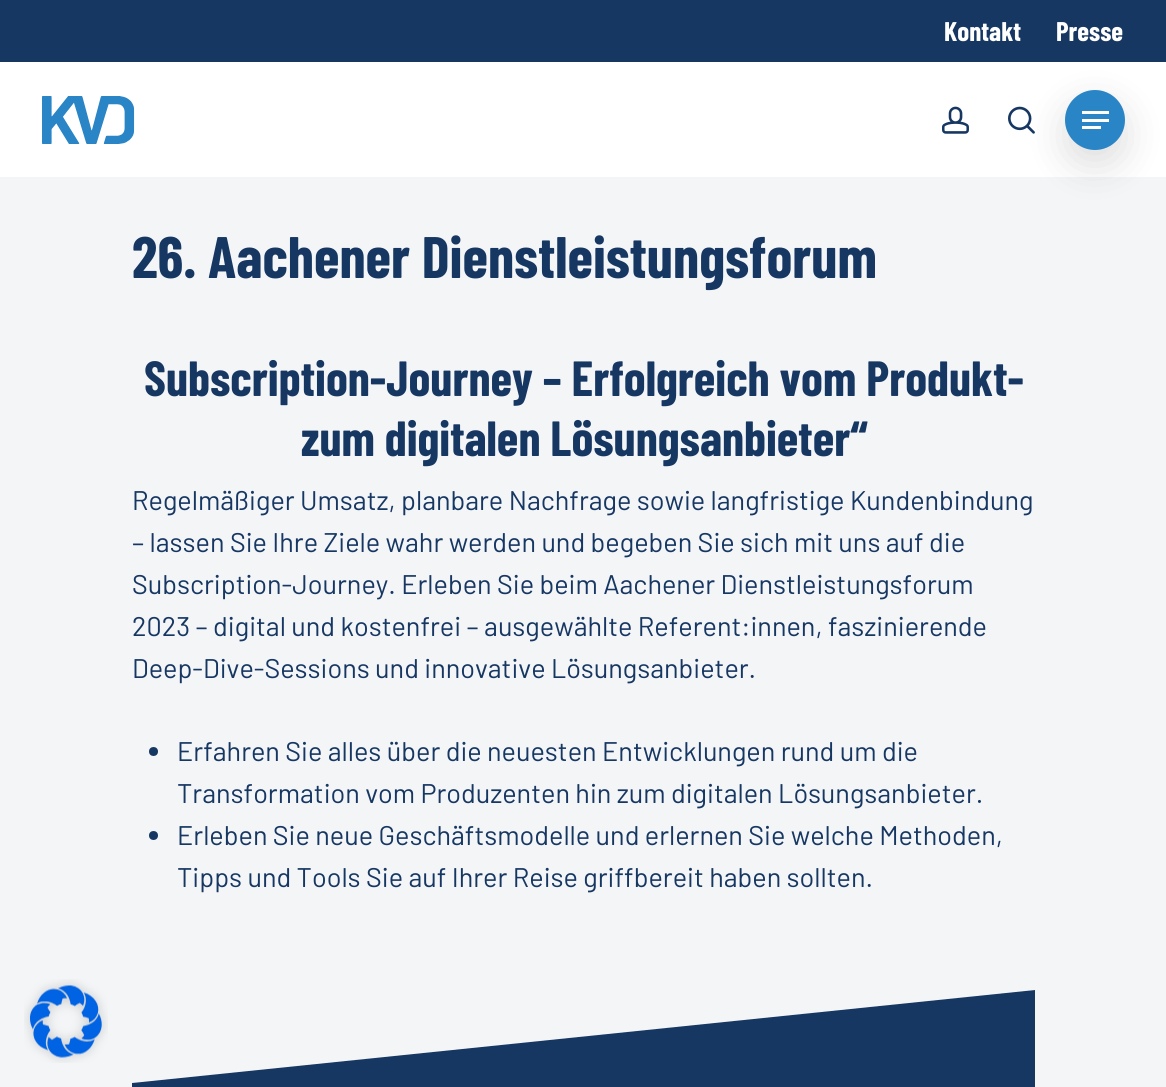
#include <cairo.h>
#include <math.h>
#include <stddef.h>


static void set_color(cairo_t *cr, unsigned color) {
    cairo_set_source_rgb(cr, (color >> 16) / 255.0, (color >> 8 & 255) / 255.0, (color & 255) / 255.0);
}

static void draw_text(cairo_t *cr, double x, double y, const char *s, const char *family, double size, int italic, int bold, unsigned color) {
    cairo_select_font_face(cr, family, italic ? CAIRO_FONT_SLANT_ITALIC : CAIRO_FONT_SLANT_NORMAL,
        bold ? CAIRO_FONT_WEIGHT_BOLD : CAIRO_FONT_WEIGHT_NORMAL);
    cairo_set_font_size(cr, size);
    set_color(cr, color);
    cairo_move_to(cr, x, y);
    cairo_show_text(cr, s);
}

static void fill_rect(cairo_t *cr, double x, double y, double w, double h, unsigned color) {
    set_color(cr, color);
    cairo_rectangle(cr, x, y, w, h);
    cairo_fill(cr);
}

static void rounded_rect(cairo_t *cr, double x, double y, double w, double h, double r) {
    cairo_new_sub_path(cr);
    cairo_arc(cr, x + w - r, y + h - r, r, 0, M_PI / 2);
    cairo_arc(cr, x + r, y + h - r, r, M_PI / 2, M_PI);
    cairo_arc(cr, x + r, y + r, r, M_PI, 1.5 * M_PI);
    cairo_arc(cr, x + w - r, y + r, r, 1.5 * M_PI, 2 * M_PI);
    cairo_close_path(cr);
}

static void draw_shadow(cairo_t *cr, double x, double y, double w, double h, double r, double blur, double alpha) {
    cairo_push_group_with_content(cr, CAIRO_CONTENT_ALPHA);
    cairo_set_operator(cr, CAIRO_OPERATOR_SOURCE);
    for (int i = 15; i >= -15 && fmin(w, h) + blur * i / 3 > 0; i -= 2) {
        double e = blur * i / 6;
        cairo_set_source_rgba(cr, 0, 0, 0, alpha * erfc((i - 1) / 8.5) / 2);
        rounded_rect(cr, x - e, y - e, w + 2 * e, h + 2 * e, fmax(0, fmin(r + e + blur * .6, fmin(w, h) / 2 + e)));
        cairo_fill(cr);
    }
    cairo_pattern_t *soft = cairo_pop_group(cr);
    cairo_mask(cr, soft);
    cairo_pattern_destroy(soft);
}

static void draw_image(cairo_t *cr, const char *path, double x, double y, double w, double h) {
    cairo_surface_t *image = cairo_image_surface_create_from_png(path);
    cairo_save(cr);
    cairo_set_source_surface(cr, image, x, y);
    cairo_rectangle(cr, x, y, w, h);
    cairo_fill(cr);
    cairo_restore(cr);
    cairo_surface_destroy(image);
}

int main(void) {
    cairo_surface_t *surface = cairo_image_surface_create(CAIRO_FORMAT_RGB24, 1166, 1087);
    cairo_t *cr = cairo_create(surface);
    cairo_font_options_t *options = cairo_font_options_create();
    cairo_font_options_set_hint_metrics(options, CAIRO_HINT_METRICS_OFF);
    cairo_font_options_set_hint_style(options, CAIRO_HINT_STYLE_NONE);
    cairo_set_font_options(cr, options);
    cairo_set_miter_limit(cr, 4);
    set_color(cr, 0xF3F5F7);
    cairo_paint(cr);
    fill_rect(cr, 0, 62, 1166, 115, 0xFFFFFF);
    draw_image(cr, "assets/img3.png", 1008, 106, 27, 28);
    set_color(cr, 0x000000);
    draw_shadow(cr, 1065, 105, 60, 60, 30, 19, 0.13);
    fill_rect(cr, 0, 0, 1166, 62, 0x173763);
    draw_text(cr, 944, 41, "Kontakt", "Barlow Condensed", 27, 0, 1, 0xFFFFFF);
    draw_text(cr, 1056, 41, "Presse", "Barlow Condensed", 27, 0, 1, 0xFFFFFF);
    draw_image(cr, "assets/img1.png", 42, 96, 93, 48);
    draw_image(cr, "assets/img2.png", 942, 106, 27, 28);
    set_color(cr, 0x2A85C6);
    cairo_arc(cr, 1095, 120, 30, 0, 2 * M_PI);
    cairo_fill(cr);
    fill_rect(cr, 1082, 111, 27, 3, 0xFFFFFF);
    fill_rect(cr, 1082, 126, 19, 3, 0xFFFFFF);
    fill_rect(cr, 1082, 119, 27, 3, 0xFFFFFF);
    draw_text(cr, 132, 278, "26. Aachener Dienstleistungsforum", "Barlow Condensed", 58.5, 0, 1, 0x173763);
    draw_text(cr, 144, 396, "Subscription-Journey – Erfolgreich vom Produkt-", "Barlow Condensed", 49.4, 0, 1, 0x173763);
    draw_text(cr, 301, 456, "zum digitalen Lösungsanbieter“", "Barlow Condensed", 49.4, 0, 1, 0x173763);
    draw_text(cr, 132, 510, "Regelmäßiger Umsatz, planbare Nachfrage sowie langfristige Kundenbindung", "Barlow", 27, 0, 0, 0x173763);
    draw_text(cr, 132, 552, "– lassen Sie Ihre Ziele wahr werden und begeben Sie sich mit uns auf die", "Barlow", 27, 0, 0, 0x173763);
    draw_text(cr, 132, 594, "Subscription-Journey. Erleben Sie beim Aachener Dienstleistungsforum", "Barlow", 27, 0, 0, 0x173763);
    draw_text(cr, 132, 636, "2023 – digital und kostenfrei – ausgewählte Referent:innen, faszinierende", "Barlow", 27, 0, 0, 0x173763);
    draw_text(cr, 132, 678, "Deep-Dive-Sessions und innovative Lösungsanbieter.", "Barlow", 27, 0, 0, 0x173763);
    cairo_new_path(cr);
    cairo_arc(cr, 153.5, 751.5, 4.5, 0, 2 * M_PI);
    cairo_fill(cr);
    draw_text(cr, 177, 761, "Erfahren Sie alles über die neuesten Entwicklungen rund um die", "Barlow", 27, 0, 0, 0x173763);
    draw_text(cr, 177, 803, "Transformation vom Produzenten hin zum digitalen Lösungsanbieter.", "Barlow", 27, 0, 0, 0x173763);
    cairo_new_path(cr);
    cairo_arc(cr, 153.5, 835.5, 4.5, 0, 2 * M_PI);
    cairo_fill(cr);
    draw_text(cr, 177, 845, "Erleben Sie neue Geschäftsmodelle und erlernen Sie welche Methoden,", "Barlow", 27, 0, 0, 0x173763);
    draw_text(cr, 177, 887, "Tipps und Tools Sie auf Ihrer Reise griffbereit haben sollten.", "Barlow", 27, 0, 0, 0x173763);
    cairo_new_path(cr);
    cairo_move_to(cr, 132, 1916);
    cairo_line_to(cr, 132, 1083);
    cairo_line_to(cr, 1035, 990);
    cairo_line_to(cr, 1035, 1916);
    cairo_close_path(cr);
    cairo_fill(cr);
    draw_image(cr, "assets/img4.png", 24, 979, 84, 84);
    cairo_surface_write_to_png(surface, "output.png");
    cairo_font_options_destroy(options);
    cairo_destroy(cr);
    cairo_surface_destroy(surface);
    return 0;
}
